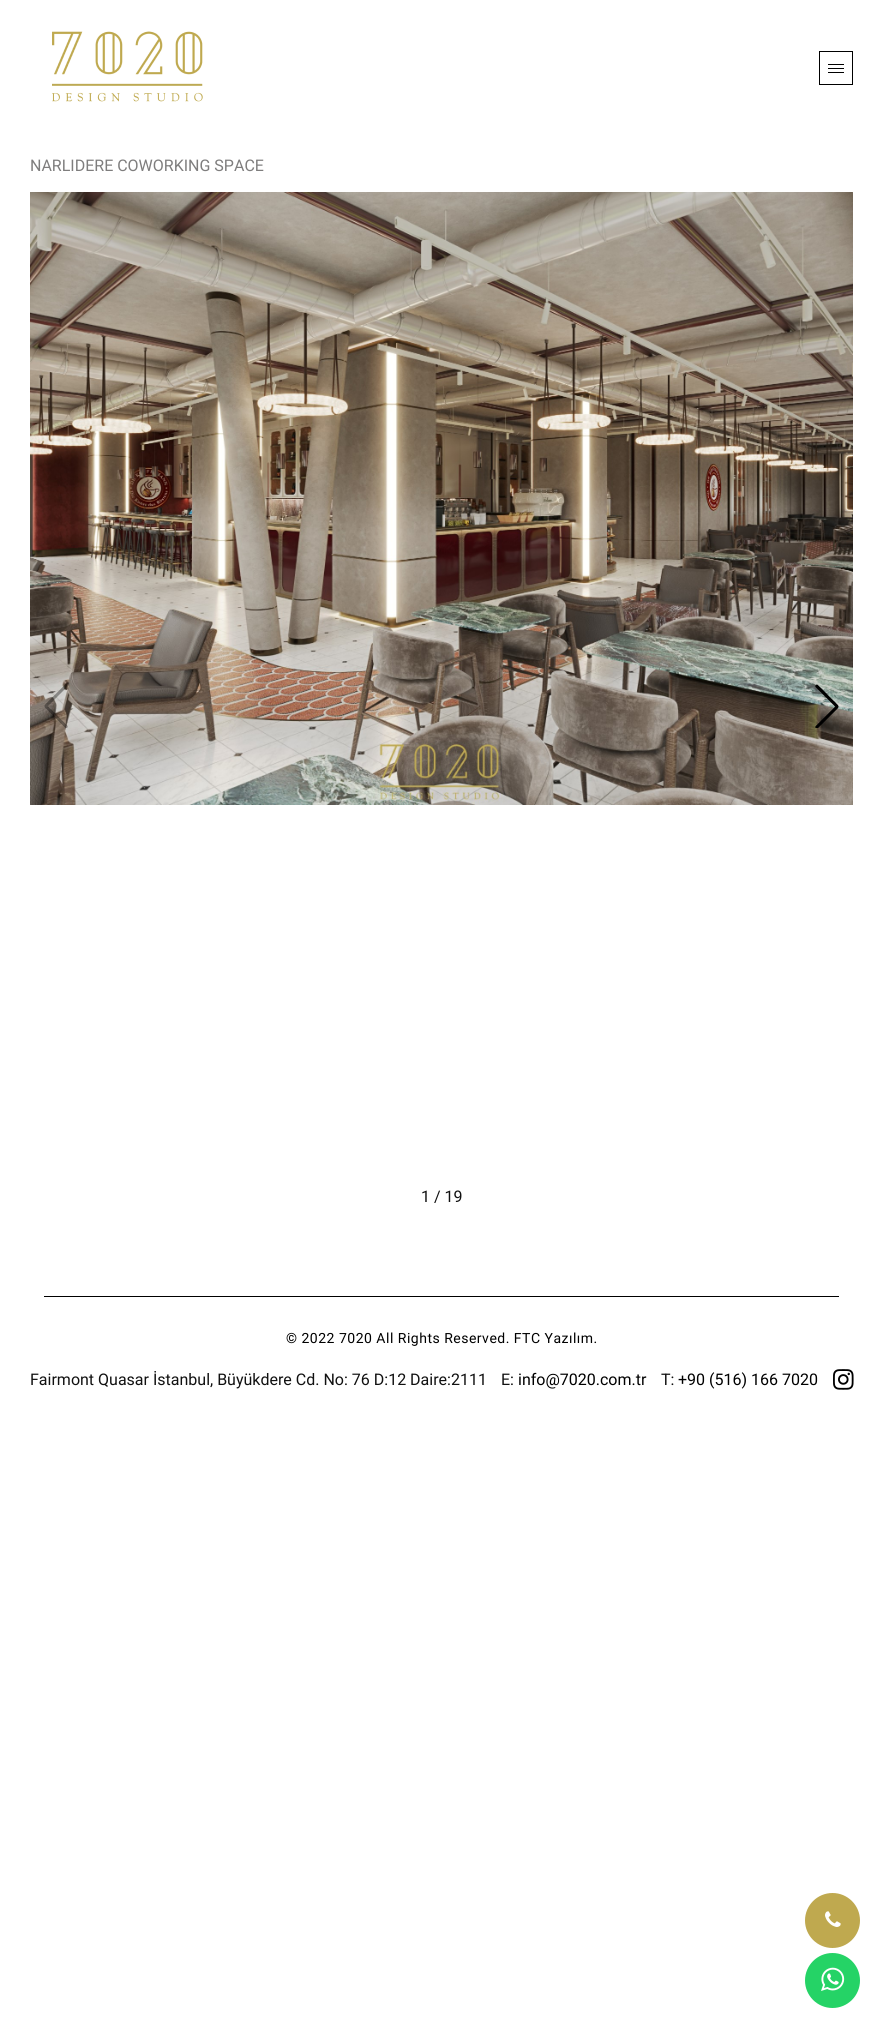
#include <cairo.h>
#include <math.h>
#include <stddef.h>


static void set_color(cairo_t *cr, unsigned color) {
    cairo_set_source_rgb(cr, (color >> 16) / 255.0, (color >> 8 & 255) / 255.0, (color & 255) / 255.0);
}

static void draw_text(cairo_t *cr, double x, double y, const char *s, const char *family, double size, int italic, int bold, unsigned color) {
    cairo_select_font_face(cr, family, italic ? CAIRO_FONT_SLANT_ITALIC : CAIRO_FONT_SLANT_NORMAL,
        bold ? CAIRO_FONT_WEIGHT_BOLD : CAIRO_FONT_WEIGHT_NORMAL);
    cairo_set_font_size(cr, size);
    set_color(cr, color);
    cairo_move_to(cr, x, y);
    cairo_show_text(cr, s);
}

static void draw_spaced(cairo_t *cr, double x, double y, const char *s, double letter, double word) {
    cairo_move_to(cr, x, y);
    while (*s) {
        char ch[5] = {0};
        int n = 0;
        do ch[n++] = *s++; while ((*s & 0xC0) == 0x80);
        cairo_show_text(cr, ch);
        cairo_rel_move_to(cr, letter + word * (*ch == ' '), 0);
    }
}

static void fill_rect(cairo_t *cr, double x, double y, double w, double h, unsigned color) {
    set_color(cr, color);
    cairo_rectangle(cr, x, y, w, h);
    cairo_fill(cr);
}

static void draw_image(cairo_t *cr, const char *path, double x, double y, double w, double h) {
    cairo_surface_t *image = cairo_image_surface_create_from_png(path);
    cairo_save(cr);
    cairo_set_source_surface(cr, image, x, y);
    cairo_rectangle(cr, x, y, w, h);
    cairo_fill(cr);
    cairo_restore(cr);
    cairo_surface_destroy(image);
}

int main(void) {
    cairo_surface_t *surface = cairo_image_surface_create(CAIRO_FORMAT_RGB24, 883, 2021);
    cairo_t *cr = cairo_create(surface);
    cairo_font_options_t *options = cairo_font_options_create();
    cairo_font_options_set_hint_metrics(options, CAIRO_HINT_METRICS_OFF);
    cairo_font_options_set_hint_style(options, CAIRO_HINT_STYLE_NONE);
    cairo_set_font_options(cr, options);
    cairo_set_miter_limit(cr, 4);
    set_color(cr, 0xFFFFFF);
    cairo_paint(cr);
    draw_image(cr, "assets/img1.png", 52, 31, 151, 71);
    cairo_rectangle(cr, 819.5, 51.5, 33, 33);
    set_color(cr, 0x000000);
    cairo_set_line_width(cr, 1);
    cairo_stroke(cr);
    fill_rect(cr, 828, 68, 16, 1, 0x000000);
    fill_rect(cr, 828, 64, 16, 1, 0x000000);
    fill_rect(cr, 828, 72, 16, 1, 0x000000);
    draw_text(cr, 30, 171, "NARLIDERE COWORKING SPACE", "Roboto", 16, 0, 0, 0x7E7D7D);
    draw_image(cr, "assets/img2.png", 30, 192, 823, 613);
    draw_image(cr, "assets/img3.png", 44, 684, 24, 44);
    draw_image(cr, "assets/img4.png", 815, 684, 24, 44);
    draw_text(cr, 421, 1202, "1 / 19", "Roboto", 16, 0, 0, 0x111111);
    fill_rect(cr, 44, 1296, 795, 1, 0x000000);
    cairo_set_font_size(cr, 14);
    draw_spaced(cr, 286, 1343, "© 2022 7020 All Rights Reserved. FTC Yazılım.", 0.5, 0);
    draw_text(cr, 30, 1385, "Fairmont Quasar İstanbul, Büyükdere Cd. No: 76 D:12 Daire:2111", "Roboto", 16, 0, 0, 0x111111);
    draw_text(cr, 501, 1385, "E:", "Roboto", 16, 0, 0, 0x111111);
    draw_text(cr, 518, 1385, "info@7020.com.tr", "Roboto", 16, 0, 0, 0x000000);
    draw_text(cr, 661, 1385, "T:", "Roboto", 16, 0, 0, 0x111111);
    draw_text(cr, 678, 1385, "+90 (516) 166 7020", "Roboto", 16, 0, 0, 0x000000);
    draw_image(cr, "assets/img5.png", 833, 1369, 21, 21);
    set_color(cr, 0xBFA94F);
    cairo_arc(cr, 832.5, 1920.5, 27.5, 0, 2 * M_PI);
    cairo_fill(cr);
    draw_image(cr, "assets/img6.png", 825, 1911, 16, 16);
    set_color(cr, 0x25D366);
    cairo_arc(cr, 832.5, 1980.5, 27.5, 0, 2 * M_PI);
    cairo_fill(cr);
    draw_image(cr, "assets/img7.png", 821, 1967, 24, 24);
    cairo_surface_write_to_png(surface, "output.png");
    cairo_font_options_destroy(options);
    cairo_destroy(cr);
    cairo_surface_destroy(surface);
    return 0;
}
